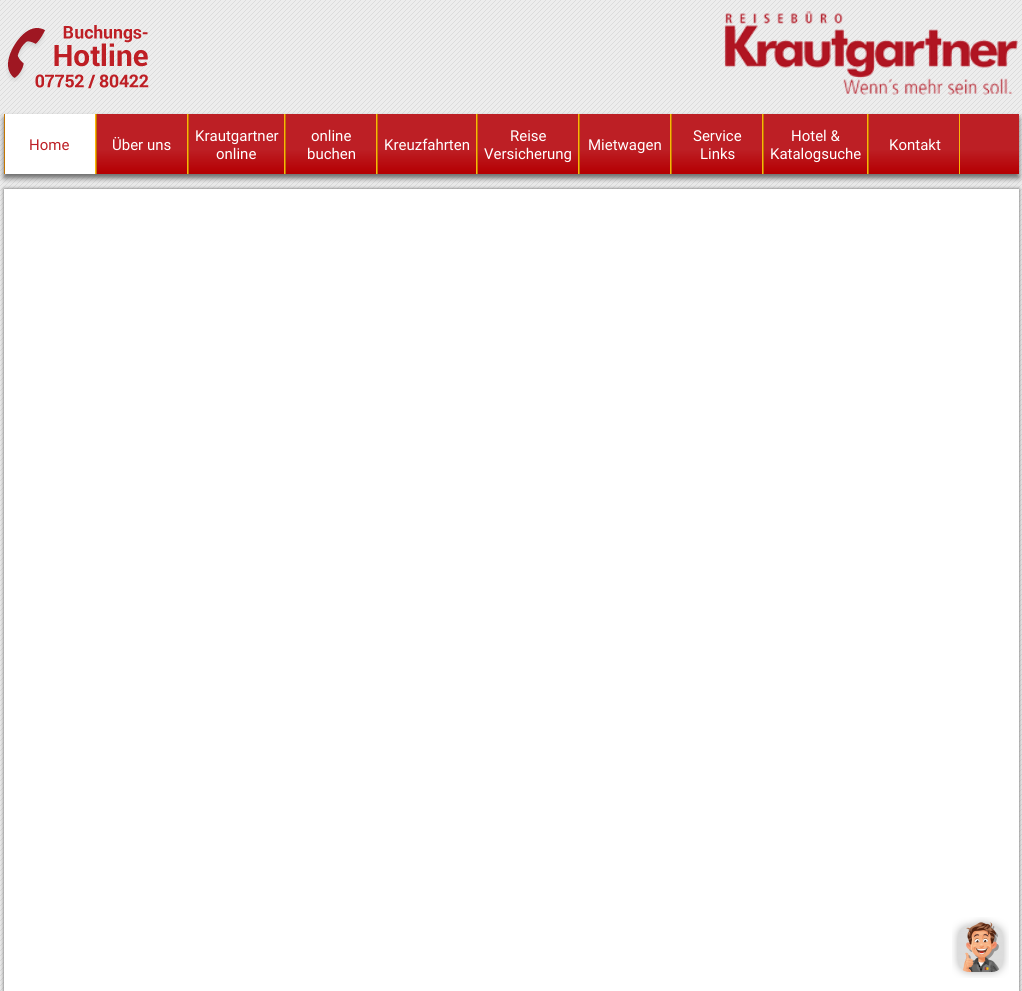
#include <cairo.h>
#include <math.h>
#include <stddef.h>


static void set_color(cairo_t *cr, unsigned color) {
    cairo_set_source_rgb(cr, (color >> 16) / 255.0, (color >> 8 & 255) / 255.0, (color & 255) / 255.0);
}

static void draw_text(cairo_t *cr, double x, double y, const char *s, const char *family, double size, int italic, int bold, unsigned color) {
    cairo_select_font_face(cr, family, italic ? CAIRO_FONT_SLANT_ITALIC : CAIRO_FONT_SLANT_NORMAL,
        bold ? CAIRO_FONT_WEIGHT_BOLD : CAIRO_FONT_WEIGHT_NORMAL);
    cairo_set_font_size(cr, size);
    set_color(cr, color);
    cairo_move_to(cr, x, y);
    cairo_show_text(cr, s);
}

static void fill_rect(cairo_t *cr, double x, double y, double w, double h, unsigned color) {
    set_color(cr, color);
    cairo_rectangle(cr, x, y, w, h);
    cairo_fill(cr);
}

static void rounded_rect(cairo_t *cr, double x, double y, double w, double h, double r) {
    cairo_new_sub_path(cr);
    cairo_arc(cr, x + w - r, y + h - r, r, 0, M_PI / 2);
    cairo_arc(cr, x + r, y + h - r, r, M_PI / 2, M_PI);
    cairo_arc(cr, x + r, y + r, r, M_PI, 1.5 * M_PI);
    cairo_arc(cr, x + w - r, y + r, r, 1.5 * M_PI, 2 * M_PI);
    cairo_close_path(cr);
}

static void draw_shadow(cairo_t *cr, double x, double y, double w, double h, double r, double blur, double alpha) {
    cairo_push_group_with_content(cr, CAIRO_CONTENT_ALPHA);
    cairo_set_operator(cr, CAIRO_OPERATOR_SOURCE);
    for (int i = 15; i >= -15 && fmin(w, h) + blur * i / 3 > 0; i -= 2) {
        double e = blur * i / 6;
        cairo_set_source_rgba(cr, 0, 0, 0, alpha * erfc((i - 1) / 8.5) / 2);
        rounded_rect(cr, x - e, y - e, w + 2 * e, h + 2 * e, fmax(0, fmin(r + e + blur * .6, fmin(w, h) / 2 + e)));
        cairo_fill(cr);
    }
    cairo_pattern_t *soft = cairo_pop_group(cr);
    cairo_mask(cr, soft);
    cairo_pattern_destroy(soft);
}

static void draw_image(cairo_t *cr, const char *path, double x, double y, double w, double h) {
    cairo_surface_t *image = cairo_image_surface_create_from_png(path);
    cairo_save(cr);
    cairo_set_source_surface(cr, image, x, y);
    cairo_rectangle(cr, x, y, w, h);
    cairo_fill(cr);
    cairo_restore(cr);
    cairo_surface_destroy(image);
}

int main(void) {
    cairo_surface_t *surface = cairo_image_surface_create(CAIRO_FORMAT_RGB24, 1022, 991);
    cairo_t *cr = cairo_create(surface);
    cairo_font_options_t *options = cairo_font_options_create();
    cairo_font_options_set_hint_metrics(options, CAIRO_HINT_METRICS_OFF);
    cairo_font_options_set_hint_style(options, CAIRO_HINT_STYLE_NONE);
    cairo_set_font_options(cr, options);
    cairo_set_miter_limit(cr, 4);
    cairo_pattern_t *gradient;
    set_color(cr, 0xFFFFFF);
    cairo_paint(cr);
    draw_image(cr, "assets/img1.png", 0, 0, 1022, 991);
    draw_image(cr, "assets/img2.png", 6, 25, 143, 64);
    draw_image(cr, "assets/img3.png", 724, 11, 294, 84);
    set_color(cr, 0x666666);
    draw_shadow(cr, 4, 118, 1015, 60, 0, 3, 1);
    gradient = cairo_pattern_create_linear(512, 114, 512, 174);
    cairo_pattern_add_color_stop_rgba(gradient, 0, 0.741, 0.122, 0.145, 1);
    cairo_pattern_add_color_stop_rgba(gradient, 0.59, 0.741, 0.122, 0.145, 1);
    cairo_pattern_add_color_stop_rgba(gradient, 0.97, 0.71, 0, 0.012, 1);
    cairo_pattern_add_color_stop_rgba(gradient, 1, 0.71, 0, 0.012, 1);
    cairo_set_source(cr, gradient);
    cairo_pattern_destroy(gradient);
    cairo_rectangle(cr, 97, 114, 922, 60);
    cairo_fill(cr);
    fill_rect(cr, 5, 114, 90, 60, 0xFFFFFF);
    fill_rect(cr, 95, 114, 1, 60, 0xFBB508);
    fill_rect(cr, 4, 114, 1, 60, 0xC27501);
    draw_text(cr, 29, 150, "Home", "Roboto", 15, 0, 0, 0xBD1F25);
    fill_rect(cr, 187, 114, 1, 60, 0xFBB508);
    fill_rect(cr, 96, 114, 1, 60, 0xC27501);
    draw_text(cr, 112, 150, "Über uns", "Roboto", 15, 0, 0, 0xFFFFFF);
    fill_rect(cr, 284, 114, 1, 60, 0xFBB508);
    fill_rect(cr, 188, 114, 1, 60, 0xC27501);
    draw_text(cr, 195, 141, "Krautgartner", "Roboto", 15, 0, 0, 0xFFFFFF);
    draw_text(cr, 216, 159, "online", "Roboto", 15, 0, 0, 0xFFFFFF);
    fill_rect(cr, 376, 114, 1, 60, 0xFBB508);
    fill_rect(cr, 285, 114, 1, 60, 0xC27501);
    draw_text(cr, 311, 141, "online", "Roboto", 15, 0, 0, 0xFFFFFF);
    draw_text(cr, 307, 159, "buchen", "Roboto", 15, 0, 0, 0xFFFFFF);
    fill_rect(cr, 476, 114, 1, 60, 0xFBB508);
    fill_rect(cr, 377, 114, 1, 60, 0xC27501);
    draw_text(cr, 384, 150, "Kreuzfahrten", "Roboto", 15, 0, 0, 0xFFFFFF);
    fill_rect(cr, 578, 114, 1, 60, 0xFBB508);
    fill_rect(cr, 477, 114, 1, 60, 0xC27501);
    draw_text(cr, 510, 141, "Reise", "Roboto", 15, 0, 0, 0xFFFFFF);
    draw_text(cr, 484, 159, "Versicherung", "Roboto", 15, 0, 0, 0xFFFFFF);
    fill_rect(cr, 670, 114, 1, 60, 0xFBB508);
    fill_rect(cr, 579, 114, 1, 60, 0xC27501);
    draw_text(cr, 588, 150, "Mietwagen", "Roboto", 15, 0, 0, 0xFFFFFF);
    fill_rect(cr, 762, 114, 1, 60, 0xFBB508);
    fill_rect(cr, 671, 114, 1, 60, 0xC27501);
    draw_text(cr, 693, 141, "Service", "Roboto", 15, 0, 0, 0xFFFFFF);
    draw_text(cr, 700, 159, "Links", "Roboto", 15, 0, 0, 0xFFFFFF);
    fill_rect(cr, 867, 114, 1, 60, 0xFBB508);
    fill_rect(cr, 763, 114, 1, 60, 0xC27501);
    draw_text(cr, 791, 141, "Hotel &", "Roboto", 15, 0, 0, 0xFFFFFF);
    draw_text(cr, 770, 159, "Katalogsuche", "Roboto", 15, 0, 0, 0xFFFFFF);
    fill_rect(cr, 959, 114, 1, 60, 0xFBB508);
    fill_rect(cr, 868, 114, 1, 60, 0xC27501);
    draw_text(cr, 889, 150, "Kontakt", "Roboto", 15, 0, 0, 0xFFFFFF);
    set_color(cr, 0x666666);
    draw_shadow(cr, 4, 189, 1015, 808, 0, 2, 1);
    fill_rect(cr, 4, 189, 1015, 802, 0xFFFFFF);
    draw_image(cr, "assets/img4.png", 952, 917, 57, 61);
    cairo_surface_write_to_png(surface, "output.png");
    cairo_font_options_destroy(options);
    cairo_destroy(cr);
    cairo_surface_destroy(surface);
    return 0;
}
